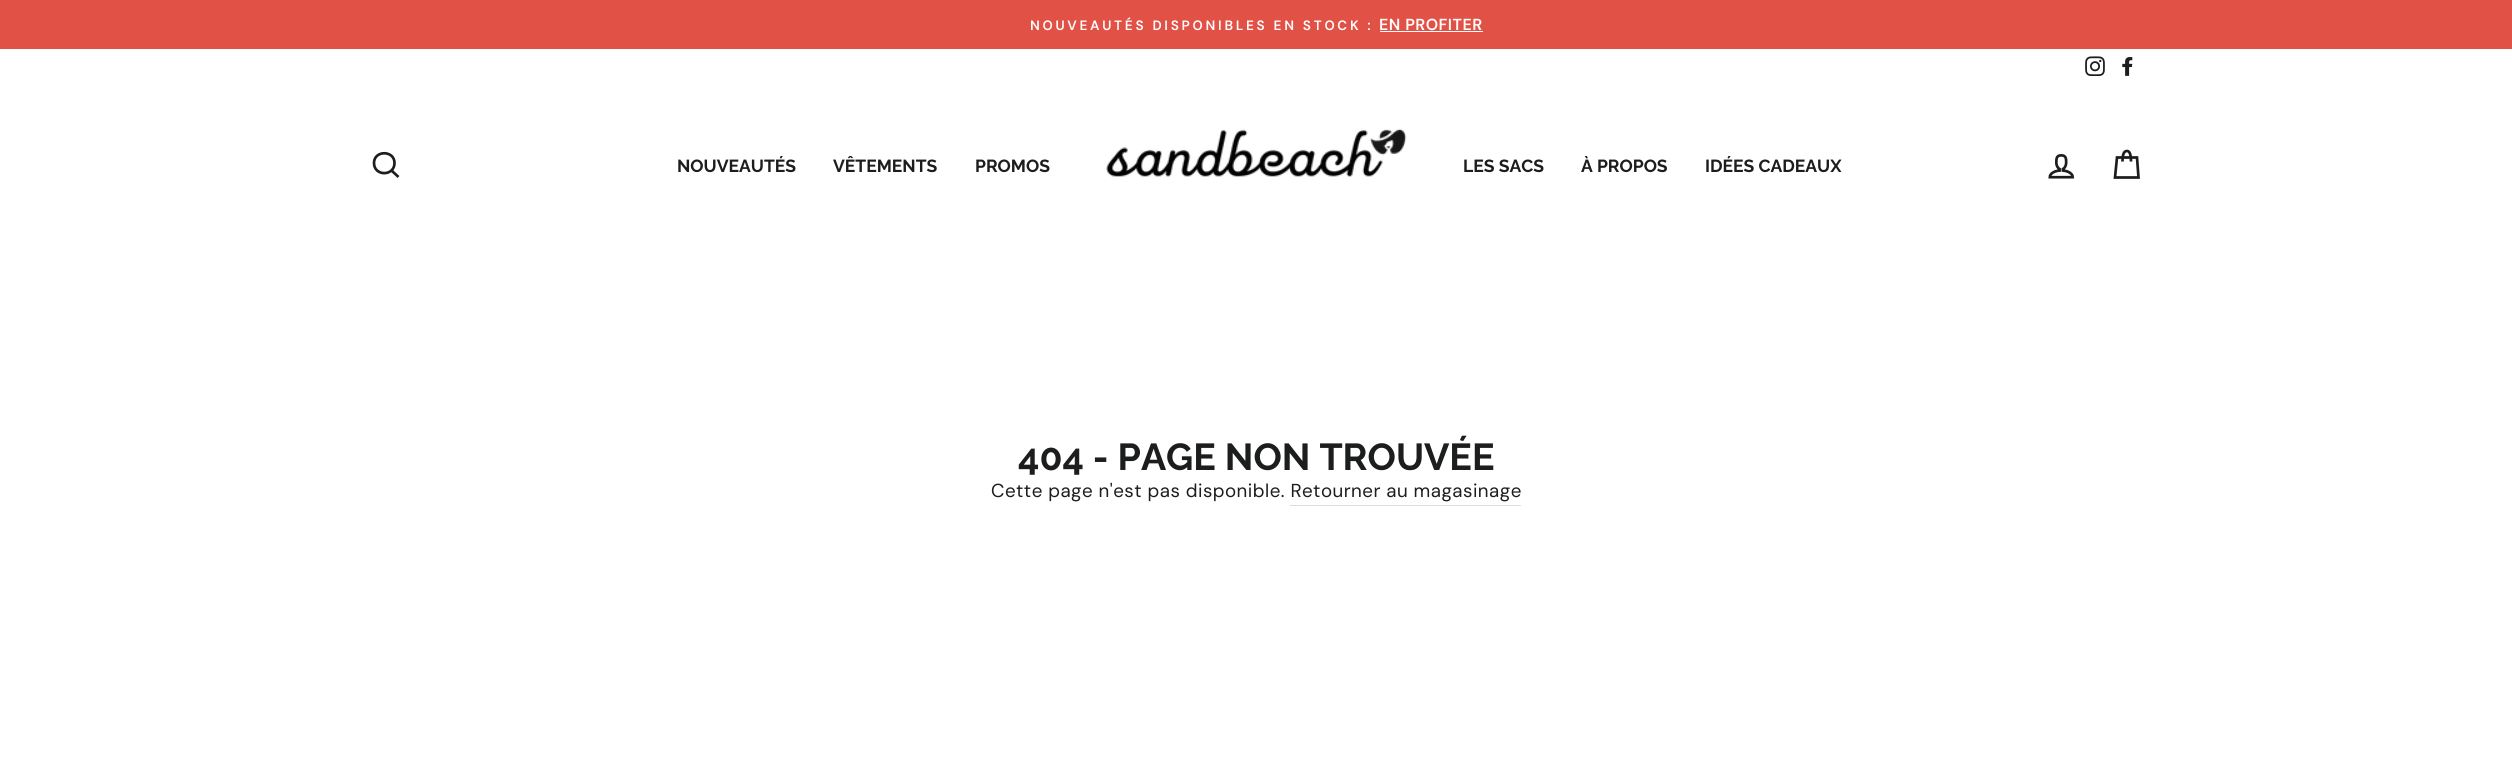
#include <cairo.h>
#include <math.h>
#include <stddef.h>


static void set_color(cairo_t *cr, unsigned color) {
    cairo_set_source_rgb(cr, (color >> 16) / 255.0, (color >> 8 & 255) / 255.0, (color & 255) / 255.0);
}

static void draw_text(cairo_t *cr, double x, double y, const char *s, const char *family, double size, int italic, int bold, unsigned color) {
    cairo_select_font_face(cr, family, italic ? CAIRO_FONT_SLANT_ITALIC : CAIRO_FONT_SLANT_NORMAL,
        bold ? CAIRO_FONT_WEIGHT_BOLD : CAIRO_FONT_WEIGHT_NORMAL);
    cairo_set_font_size(cr, size);
    set_color(cr, color);
    cairo_move_to(cr, x, y);
    cairo_show_text(cr, s);
}

static void draw_spaced(cairo_t *cr, double x, double y, const char *s, double letter, double word) {
    cairo_move_to(cr, x, y);
    while (*s) {
        char ch[5] = {0};
        int n = 0;
        do ch[n++] = *s++; while ((*s & 0xC0) == 0x80);
        cairo_show_text(cr, ch);
        cairo_rel_move_to(cr, letter + word * (*ch == ' '), 0);
    }
}

static void fill_rect(cairo_t *cr, double x, double y, double w, double h, unsigned color) {
    set_color(cr, color);
    cairo_rectangle(cr, x, y, w, h);
    cairo_fill(cr);
}

static void draw_image(cairo_t *cr, const char *path, double x, double y, double w, double h) {
    cairo_surface_t *image = cairo_image_surface_create_from_png(path);
    cairo_save(cr);
    cairo_set_source_surface(cr, image, x, y);
    cairo_rectangle(cr, x, y, w, h);
    cairo_fill(cr);
    cairo_restore(cr);
    cairo_surface_destroy(image);
}

int main(void) {
    cairo_surface_t *surface = cairo_image_surface_create(CAIRO_FORMAT_RGB24, 2512, 773);
    cairo_t *cr = cairo_create(surface);
    cairo_font_options_t *options = cairo_font_options_create();
    cairo_font_options_set_hint_metrics(options, CAIRO_HINT_METRICS_OFF);
    cairo_font_options_set_hint_style(options, CAIRO_HINT_STYLE_NONE);
    cairo_set_font_options(cr, options);
    cairo_set_miter_limit(cr, 4);
    set_color(cr, 0xFFFFFF);
    cairo_paint(cr);
    fill_rect(cr, 0, 0, 2512, 49, 0xE25146);
    cairo_select_font_face(cr, "DM Sans SemiBold", CAIRO_FONT_SLANT_NORMAL, CAIRO_FONT_WEIGHT_NORMAL);
    cairo_set_font_size(cr, 13.55);
    set_color(cr, 0xFFFFFF);
    draw_spaced(cr, 1030, 30, "NOUVEAUTÉS DISPONIBLES EN STOCK :", 2.7, 0);
    cairo_select_font_face(cr, "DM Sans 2 SemiBold", CAIRO_FONT_SLANT_NORMAL, CAIRO_FONT_WEIGHT_NORMAL);
    cairo_set_font_size(cr, 16);
    draw_spaced(cr, 1379, 30, "EN PROFITER", 0.47, 0);
    fill_rect(cr, 1380, 31, 103, 1, 0xFFFFFF);
    draw_image(cr, "assets/img1.png", 2085, 56, 20, 20);
    draw_image(cr, "assets/img2.png", 2122, 57, 11, 19);
    cairo_new_path(cr);
    cairo_move_to(cr, 394.5, 163);
    cairo_curve_to(cr, 394.5, 176.5, 374, 176.5, 374, 163);
    cairo_curve_to(cr, 374, 150, 394.5, 150, 394.5, 163);
    cairo_close_path(cr);
    cairo_move_to(cr, 398.5, 177);
    cairo_line_to(cr, 391.5, 170.5);
    set_color(cr, 0x1C1D1D);
    cairo_set_line_width(cr, 2.7);
    cairo_stroke(cr);
    draw_text(cr, 677, 172, "NOUVEAUTÉS", "Raleway", 17.5, 0, 1, 0x1C1D1D);
    draw_text(cr, 833, 172, "VÊTEMENTS", "Raleway", 17.5, 0, 1, 0x1C1D1D);
    draw_text(cr, 975, 172, "PROMOS", "Raleway", 17.5, 0, 1, 0x1C1D1D);
    draw_image(cr, "assets/img3.png", 1106, 128, 301, 49);
    draw_text(cr, 1463, 172, "LES SACS", "Raleway", 17.5, 0, 1, 0x1C1D1D);
    draw_text(cr, 1581, 172, "À PROPOS", "Raleway", 17.5, 0, 1, 0x1C1D1D);
    draw_text(cr, 1705, 172, "IDÉES CADEAUX", "Raleway", 17.5, 0, 1, 0x1C1D1D);
    draw_image(cr, "assets/img4.png", 2048, 154, 27, 25);
    cairo_new_path(cr);
    cairo_move_to(cr, 2122.5, 161.5);
    cairo_curve_to(cr, 2122.5, 153, 2124.5, 151, 2127, 151);
    cairo_curve_to(cr, 2129, 151, 2131, 153, 2131, 161.5);
    cairo_move_to(cr, 2117, 157.5);
    cairo_line_to(cr, 2137, 157.5);
    cairo_line_to(cr, 2138.5, 177.5);
    cairo_line_to(cr, 2115, 177.5);
    cairo_close_path(cr);
    cairo_stroke(cr);
    draw_text(cr, 1018, 470, "404 - PAGE NON TROUVÉE", "Raleway", 37.5, 0, 1, 0x1C1D1D);
    cairo_select_font_face(cr, "DM Sans", CAIRO_FONT_SLANT_NORMAL, CAIRO_FONT_WEIGHT_NORMAL);
    cairo_set_font_size(cr, 18.75);
    draw_spaced(cr, 991, 497, "Cette page n'est pas disponible. Retourner au magasinage", 0.47, 0);
    fill_rect(cr, 1290, 505, 231, 1, 0xDDDDDD);
    cairo_surface_write_to_png(surface, "output.png");
    cairo_font_options_destroy(options);
    cairo_destroy(cr);
    cairo_surface_destroy(surface);
    return 0;
}
